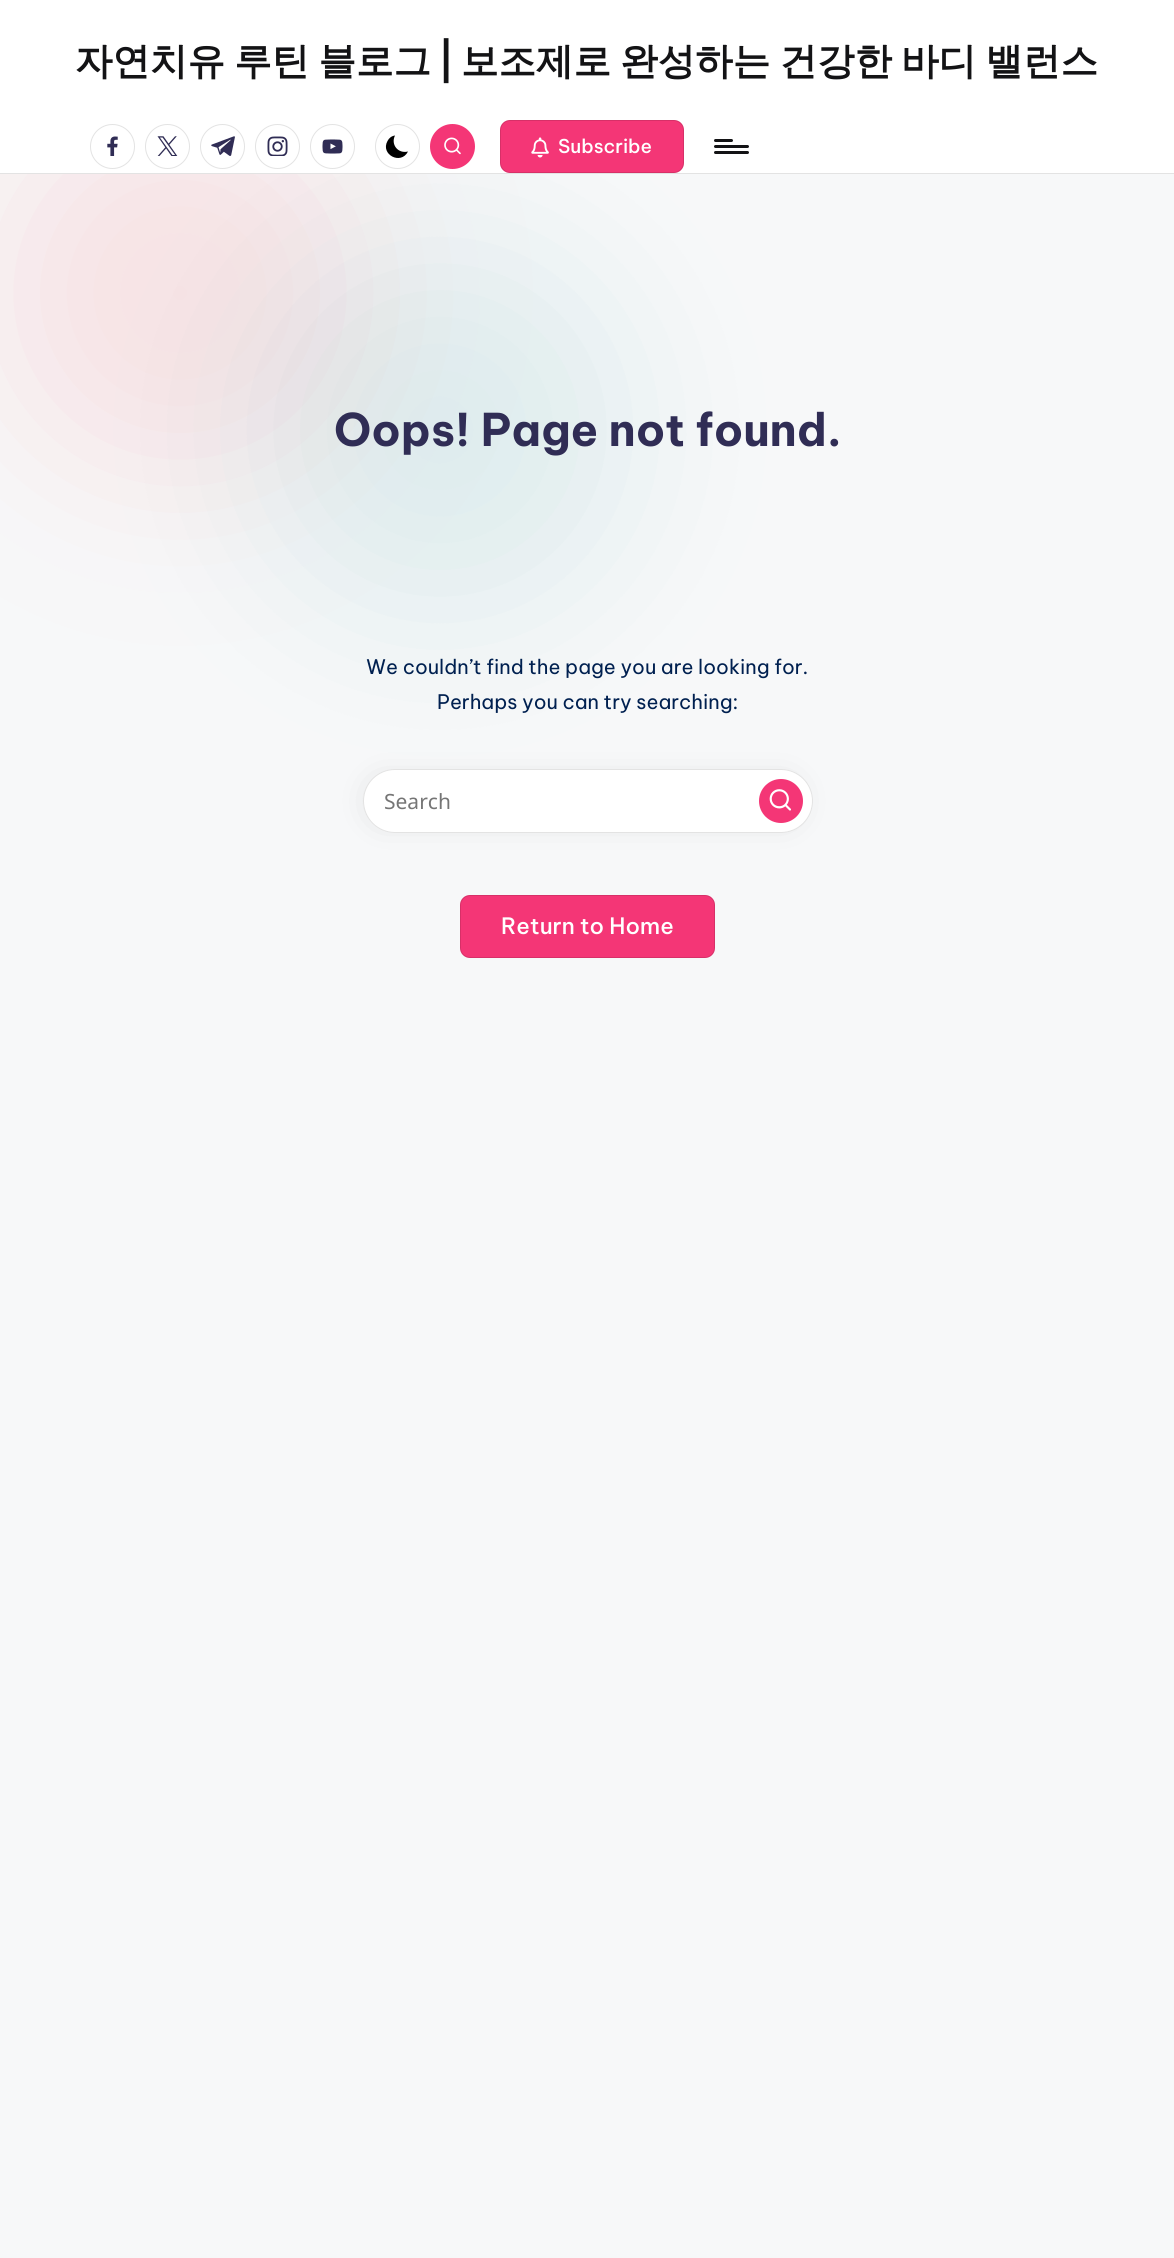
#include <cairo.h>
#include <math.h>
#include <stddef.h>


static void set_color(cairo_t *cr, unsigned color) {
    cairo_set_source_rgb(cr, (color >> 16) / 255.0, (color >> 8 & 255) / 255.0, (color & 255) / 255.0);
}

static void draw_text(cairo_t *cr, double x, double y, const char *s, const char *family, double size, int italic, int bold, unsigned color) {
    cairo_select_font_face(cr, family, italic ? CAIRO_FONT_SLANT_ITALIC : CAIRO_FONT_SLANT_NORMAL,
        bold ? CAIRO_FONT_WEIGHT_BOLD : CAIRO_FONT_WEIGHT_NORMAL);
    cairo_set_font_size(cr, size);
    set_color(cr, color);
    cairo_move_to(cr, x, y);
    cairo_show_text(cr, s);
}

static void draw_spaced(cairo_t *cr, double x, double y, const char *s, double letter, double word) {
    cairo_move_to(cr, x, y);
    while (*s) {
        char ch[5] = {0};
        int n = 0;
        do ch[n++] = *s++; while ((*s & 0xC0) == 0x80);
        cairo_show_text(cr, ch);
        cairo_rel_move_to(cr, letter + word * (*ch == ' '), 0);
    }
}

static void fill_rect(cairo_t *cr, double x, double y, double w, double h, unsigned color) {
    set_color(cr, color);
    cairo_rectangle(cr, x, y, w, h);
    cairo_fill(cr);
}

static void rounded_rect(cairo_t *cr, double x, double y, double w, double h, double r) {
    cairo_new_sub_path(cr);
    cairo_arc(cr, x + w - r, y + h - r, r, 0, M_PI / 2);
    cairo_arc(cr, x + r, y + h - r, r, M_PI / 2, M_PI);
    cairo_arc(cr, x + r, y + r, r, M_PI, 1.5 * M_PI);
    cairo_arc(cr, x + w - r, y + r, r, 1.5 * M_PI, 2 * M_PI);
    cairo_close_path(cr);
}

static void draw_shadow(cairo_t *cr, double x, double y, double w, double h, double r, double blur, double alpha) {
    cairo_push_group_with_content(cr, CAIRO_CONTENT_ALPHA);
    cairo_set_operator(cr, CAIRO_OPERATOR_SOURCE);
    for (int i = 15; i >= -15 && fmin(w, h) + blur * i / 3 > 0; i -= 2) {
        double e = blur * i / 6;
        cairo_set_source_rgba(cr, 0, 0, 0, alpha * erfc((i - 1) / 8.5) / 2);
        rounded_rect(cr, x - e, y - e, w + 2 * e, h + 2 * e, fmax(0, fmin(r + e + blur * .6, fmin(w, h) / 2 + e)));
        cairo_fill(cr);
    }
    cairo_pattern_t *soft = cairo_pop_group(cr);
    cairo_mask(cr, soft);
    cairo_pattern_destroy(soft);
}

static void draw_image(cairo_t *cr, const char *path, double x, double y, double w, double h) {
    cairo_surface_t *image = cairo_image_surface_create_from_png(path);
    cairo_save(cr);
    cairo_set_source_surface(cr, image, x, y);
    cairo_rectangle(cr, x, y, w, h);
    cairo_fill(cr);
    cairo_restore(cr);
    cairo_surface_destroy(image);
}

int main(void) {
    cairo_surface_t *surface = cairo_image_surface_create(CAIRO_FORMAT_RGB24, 1174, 2258);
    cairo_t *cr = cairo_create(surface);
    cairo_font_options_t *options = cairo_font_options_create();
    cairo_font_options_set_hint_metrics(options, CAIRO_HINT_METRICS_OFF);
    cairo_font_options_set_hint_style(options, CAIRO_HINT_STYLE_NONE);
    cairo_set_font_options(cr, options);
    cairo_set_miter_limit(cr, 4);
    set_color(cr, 0xF7F8F9);
    cairo_paint(cr);
    set_color(cr, 0xF7E3E5);
    draw_shadow(cr, 0, 113, 360, 360, 180, 80, 1);
    set_color(cr, 0x04868B);
    draw_shadow(cr, 260, 250, 360, 360, 180, 80, 0.1);
    fill_rect(cr, 0, 0, 1174, 173, 0xFFFFFF);
    fill_rect(cr, 0, 173, 1174, 1, 0xE3E3E3);
    cairo_select_font_face(cr, "WenQuanYi Zen Hei", CAIRO_FONT_SLANT_NORMAL, CAIRO_FONT_WEIGHT_BOLD);
    cairo_set_font_size(cr, 37.5);
    set_color(cr, 0x131315);
    draw_spaced(cr, 75, 74, "자연치유 루틴 블로그", 0, -2);
    draw_text(cr, 438, 74, "|", "Be Vietnam Pro", 37.5, 0, 1, 0x131315);
    cairo_select_font_face(cr, "WenQuanYi Zen Hei", CAIRO_FONT_SLANT_NORMAL, CAIRO_FONT_WEIGHT_BOLD);
    draw_spaced(cr, 461, 74, "보조제로 완성하는 건강한 바디 밸런스", 0, -2);
    cairo_new_path(cr);
    cairo_arc(cr, 112.5, 146.5, 22, 0, 2 * M_PI);
    set_color(cr, 0xE3E3E3);
    cairo_set_line_width(cr, 1);
    cairo_stroke(cr);
    draw_image(cr, "assets/img1.png", 107, 136, 11, 20);
    cairo_arc(cr, 167.5, 146.5, 22, 0, 2 * M_PI);
    cairo_stroke(cr);
    draw_image(cr, "assets/img2.png", 157, 136, 21, 20);
    cairo_arc(cr, 222.5, 146.5, 22, 0, 2 * M_PI);
    cairo_stroke(cr);
    draw_image(cr, "assets/img3.png", 211, 136, 24, 20);
    cairo_arc(cr, 277.5, 146.5, 22, 0, 2 * M_PI);
    cairo_stroke(cr);
    draw_image(cr, "assets/img4.png", 267, 136, 21, 20);
    cairo_arc(cr, 332.5, 146.5, 22, 0, 2 * M_PI);
    cairo_stroke(cr);
    draw_image(cr, "assets/img5.png", 322, 139, 21, 15);
    cairo_arc(cr, 397.5, 146.5, 22, 0, 2 * M_PI);
    cairo_stroke(cr);
    set_color(cr, 0x000000);
    cairo_new_path(cr);
    cairo_move_to(cr, 408, 151.5);
    cairo_curve_to(cr, 398, 154, 390.5, 144.5, 395, 135.5);
    cairo_curve_to(cr, 391.5, 136, 389, 138, 387.5, 141);
    cairo_curve_to(cr, 380, 154.5, 401, 165.5, 408, 151.5);
    cairo_close_path(cr);
    cairo_fill(cr);
    set_color(cr, 0xF43676);
    cairo_arc(cr, 452.5, 146.5, 22.5, 0, 2 * M_PI);
    cairo_fill(cr);
    draw_image(cr, "assets/img6.png", 444, 137, 17, 18);
    rounded_rect(cr, 500, 120, 184, 53, 10);
    cairo_fill(cr);
    rounded_rect(cr, 500.5, 120.5, 183, 52, 9.5);
    cairo_set_source_rgba(cr, 0, 0, 0, 0.12);
    cairo_stroke(cr);
    draw_image(cr, "assets/img7.png", 531, 137, 18, 21);
    draw_text(cr, 558, 153, "Subscribe", "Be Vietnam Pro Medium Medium", 19, 0, 0, 0xFFFFFF);
    set_color(cr, 0x131315);
    rounded_rect(cr, 714, 145, 35, 3, 1.5);
    cairo_fill(cr);
    rounded_rect(cr, 714, 139, 19, 3, 1.5);
    cairo_fill(cr);
    rounded_rect(cr, 714, 151, 35, 3, 1.5);
    cairo_fill(cr);
    draw_text(cr, 334, 446, "Oops! Page not found.", "Be Vietnam Pro", 45, 0, 1, 0x302D55);
    draw_text(cr, 366, 674, "We couldn’t find the page you are looking for.", "Be Vietnam Pro", 20, 0, 0, 0x002050);
    draw_text(cr, 437, 709, "Perhaps you can try searching:", "Be Vietnam Pro", 20, 0, 0, 0x002050);
    set_color(cr, 0x000000);
    draw_shadow(cr, 379, 789, 410, 24, 12, 20, 0.15);
    set_color(cr, 0xFFFFFF);
    rounded_rect(cr, 363, 769, 450, 64, 32);
    cairo_fill(cr);
    rounded_rect(cr, 363.5, 769.5, 449, 63, 31.5);
    cairo_set_source_rgba(cr, 0.725, 0.725, 0.725, 0.4);
    cairo_stroke(cr);
    draw_text(cr, 384, 809, "Search", "Noto Sans", 21, 0, 0, 0x757575);
    set_color(cr, 0xF43676);
    cairo_new_path(cr);
    cairo_arc(cr, 781, 801, 22, 0, 2 * M_PI);
    cairo_fill(cr);
    draw_image(cr, "assets/img8.png", 769, 789, 22, 22);
    rounded_rect(cr, 460, 895, 255, 63, 10);
    cairo_fill(cr);
    rounded_rect(cr, 460.5, 895.5, 254, 62, 9.5);
    cairo_set_source_rgba(cr, 0, 0, 0, 0.12);
    cairo_stroke(cr);
    draw_text(cr, 501, 934, "Return to Home", "Be Vietnam Pro Medium Medium", 22.5, 0, 0, 0xFFFFFF);
    cairo_surface_write_to_png(surface, "output.png");
    cairo_font_options_destroy(options);
    cairo_destroy(cr);
    cairo_surface_destroy(surface);
    return 0;
}
